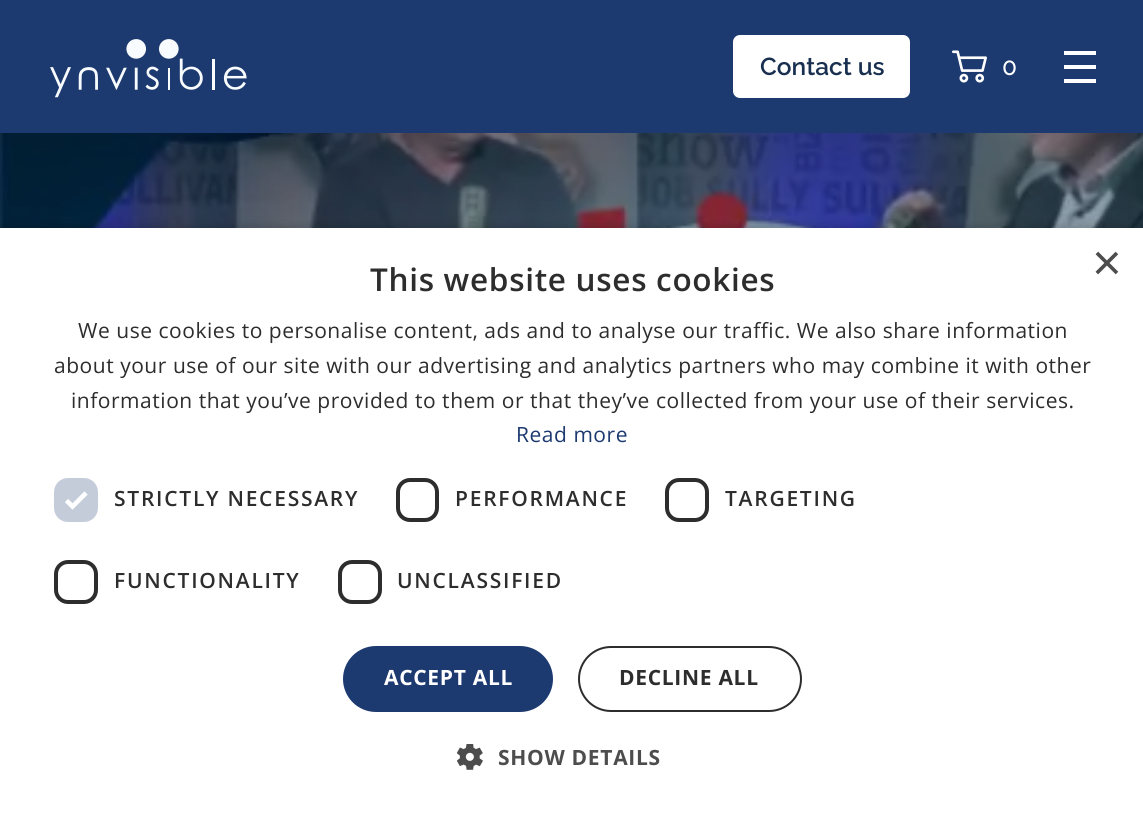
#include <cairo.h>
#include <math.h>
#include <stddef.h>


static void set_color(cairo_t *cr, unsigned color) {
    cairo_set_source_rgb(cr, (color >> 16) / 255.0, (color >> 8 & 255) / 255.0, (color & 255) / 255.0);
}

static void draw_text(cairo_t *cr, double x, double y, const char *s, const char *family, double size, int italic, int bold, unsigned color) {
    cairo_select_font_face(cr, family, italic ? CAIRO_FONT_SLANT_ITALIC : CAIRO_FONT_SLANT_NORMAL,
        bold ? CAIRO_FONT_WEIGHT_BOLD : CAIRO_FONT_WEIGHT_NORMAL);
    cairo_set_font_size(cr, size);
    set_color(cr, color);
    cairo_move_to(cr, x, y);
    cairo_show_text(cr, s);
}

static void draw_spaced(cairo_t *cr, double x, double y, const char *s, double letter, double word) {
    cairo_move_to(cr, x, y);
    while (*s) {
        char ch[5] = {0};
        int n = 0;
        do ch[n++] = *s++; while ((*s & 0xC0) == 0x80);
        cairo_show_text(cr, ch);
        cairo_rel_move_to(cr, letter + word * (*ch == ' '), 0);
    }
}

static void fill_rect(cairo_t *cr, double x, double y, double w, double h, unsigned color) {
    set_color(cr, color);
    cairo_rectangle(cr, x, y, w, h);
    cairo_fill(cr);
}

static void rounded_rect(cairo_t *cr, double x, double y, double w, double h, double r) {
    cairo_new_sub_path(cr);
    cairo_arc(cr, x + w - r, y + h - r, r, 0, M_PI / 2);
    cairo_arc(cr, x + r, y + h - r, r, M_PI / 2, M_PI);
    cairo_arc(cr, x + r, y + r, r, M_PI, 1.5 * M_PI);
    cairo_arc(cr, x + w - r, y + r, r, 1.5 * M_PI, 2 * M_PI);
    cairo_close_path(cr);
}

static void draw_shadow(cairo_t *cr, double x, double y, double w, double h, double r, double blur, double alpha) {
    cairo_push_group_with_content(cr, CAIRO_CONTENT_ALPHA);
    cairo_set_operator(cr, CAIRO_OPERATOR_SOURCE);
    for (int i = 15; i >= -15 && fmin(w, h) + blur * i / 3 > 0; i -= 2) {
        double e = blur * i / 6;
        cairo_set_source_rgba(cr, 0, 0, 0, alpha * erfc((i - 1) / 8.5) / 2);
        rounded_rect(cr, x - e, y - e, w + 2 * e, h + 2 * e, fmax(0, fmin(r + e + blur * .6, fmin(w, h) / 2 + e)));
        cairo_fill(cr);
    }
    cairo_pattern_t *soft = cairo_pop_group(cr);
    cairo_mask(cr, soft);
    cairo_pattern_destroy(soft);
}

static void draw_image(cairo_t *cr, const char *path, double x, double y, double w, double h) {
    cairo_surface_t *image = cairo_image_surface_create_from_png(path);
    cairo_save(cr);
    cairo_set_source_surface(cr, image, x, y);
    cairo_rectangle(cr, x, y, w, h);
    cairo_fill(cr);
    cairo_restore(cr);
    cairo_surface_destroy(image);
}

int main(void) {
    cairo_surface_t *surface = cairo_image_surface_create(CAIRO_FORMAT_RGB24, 1143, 816);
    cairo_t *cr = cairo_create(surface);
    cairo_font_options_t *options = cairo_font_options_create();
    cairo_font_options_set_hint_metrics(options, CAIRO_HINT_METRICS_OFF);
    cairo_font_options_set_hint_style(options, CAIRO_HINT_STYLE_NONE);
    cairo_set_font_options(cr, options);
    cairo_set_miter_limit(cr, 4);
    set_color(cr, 0xFFFFFF);
    cairo_paint(cr);
    fill_rect(cr, 0, 0, 1143, 133, 0x1D3A70);
    draw_image(cr, "assets/img1.png", 50, 39, 197, 59);
    set_color(cr, 0xFFFFFF);
    rounded_rect(cr, 734, 36, 175, 61, 6);
    cairo_fill_preserve(cr);
    cairo_stroke(cr);
    draw_text(cr, 760, 75, "Contact us", "Raleway SemiBold", 24.5, 0, 0, 0x192F50);
    draw_image(cr, "assets/img2.png", 952, 50, 35, 33);
    draw_text(cr, 1002, 75, "0", "Raleway Medium", 24.5, 0, 0, 0xFFFFFF);
    fill_rect(cr, 1064, 51, 32, 4, 0xFFFFFF);
    fill_rect(cr, 1064, 65, 32, 4, 0xFFFFFF);
    fill_rect(cr, 1064, 79, 32, 4, 0xFFFFFF);
    draw_image(cr, "assets/img3.png", 0, 133, 1143, 95);
    set_color(cr, 0x000000);
    draw_shadow(cr, 2, 231, 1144, 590, 0, 7, 0.35);
    fill_rect(cr, 0, 228, 1143, 588, 0xFFFFFF);
    draw_text(cr, 1092, 280, "×", "Liberation Sans", 51, 0, 0, 0x4D4D4D);
    cairo_select_font_face(cr, "Open Sans SemiBold", CAIRO_FONT_SLANT_NORMAL, CAIRO_FONT_WEIGHT_NORMAL);
    cairo_set_font_size(cr, 31.5);
    set_color(cr, 0x2D2D2D);
    draw_spaced(cr, 370, 291, "This website uses cookies", 0.7, 0);
    cairo_select_font_face(cr, "Open Sans", CAIRO_FONT_SLANT_NORMAL, CAIRO_FONT_WEIGHT_NORMAL);
    cairo_set_font_size(cr, 21);
    draw_spaced(cr, 78, 338, "We use cookies to personalise content, ads and to analyse our traffic. We also share information", 0.53, 0);
    draw_spaced(cr, 54, 373, "about your use of our site with our advertising and analytics partners who may combine it with other", 0.53, 0);
    draw_spaced(cr, 71, 408, "information that you’ve provided to them or that they’ve collected from your use of their services.", 0.53, 0);
    set_color(cr, 0x1D3A70);
    draw_spaced(cr, 516, 442, "Read more", 0.53, 0);
    set_color(cr, 0xC4CCDA);
    rounded_rect(cr, 54, 478, 44, 44, 14);
    cairo_fill(cr);
    cairo_new_path(cr);
    cairo_move_to(cr, 66.5, 500.5);
    cairo_line_to(cr, 72.5, 506.5);
    cairo_line_to(cr, 86, 493);
    set_color(cr, 0xFFFFFF);
    cairo_set_line_width(cr, 4.6);
    cairo_stroke(cr);
    cairo_select_font_face(cr, "Open Sans SemiBold", CAIRO_FONT_SLANT_NORMAL, CAIRO_FONT_WEIGHT_NORMAL);
    set_color(cr, 0x2D2D2D);
    draw_spaced(cr, 114, 506, "STRICTLY NECESSARY", 1.75, 0);
    rounded_rect(cr, 398, 480, 39, 40, 12);
    cairo_set_line_width(cr, 4);
    cairo_stroke(cr);
    draw_spaced(cr, 455, 506, "PERFORMANCE", 1.75, 0);
    rounded_rect(cr, 667, 480, 40, 40, 12);
    cairo_stroke(cr);
    draw_spaced(cr, 725, 506, "TARGETING", 1.75, 0);
    rounded_rect(cr, 56, 562, 40, 40, 12);
    cairo_stroke(cr);
    draw_spaced(cr, 114, 588, "FUNCTIONALITY", 1.75, 0);
    rounded_rect(cr, 340, 562, 40, 40, 12);
    cairo_stroke(cr);
    draw_spaced(cr, 397, 588, "UNCLASSIFIED", 1.75, 0);
    set_color(cr, 0x1D3A70);
    rounded_rect(cr, 343, 646, 210, 66, 33);
    cairo_fill(cr);
    cairo_select_font_face(cr, "Open Sans", CAIRO_FONT_SLANT_NORMAL, CAIRO_FONT_WEIGHT_BOLD);
    set_color(cr, 0xFFFFFF);
    draw_spaced(cr, 384, 685, "ACCEPT ALL", 0.7, 0);
    rounded_rect(cr, 579, 647, 222, 64, 32);
    set_color(cr, 0x2D2D2D);
    cairo_set_line_width(cr, 2);
    cairo_stroke(cr);
    draw_spaced(cr, 619, 685, "DECLINE ALL", 0.7, 0);
    draw_image(cr, "assets/img4.png", 457, 744, 26, 26);
    set_color(cr, 0x4D4D4D);
    draw_spaced(cr, 498, 765, "SHOW DETAILS", 0.7, 0);
    cairo_surface_write_to_png(surface, "output.png");
    cairo_font_options_destroy(options);
    cairo_destroy(cr);
    cairo_surface_destroy(surface);
    return 0;
}
